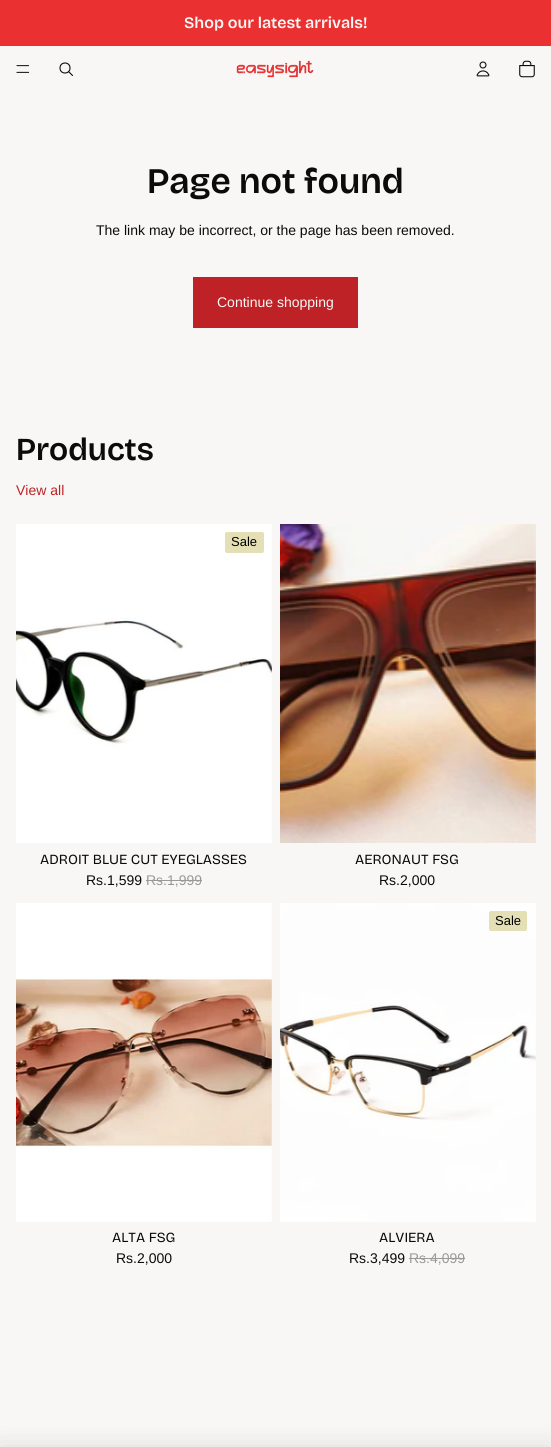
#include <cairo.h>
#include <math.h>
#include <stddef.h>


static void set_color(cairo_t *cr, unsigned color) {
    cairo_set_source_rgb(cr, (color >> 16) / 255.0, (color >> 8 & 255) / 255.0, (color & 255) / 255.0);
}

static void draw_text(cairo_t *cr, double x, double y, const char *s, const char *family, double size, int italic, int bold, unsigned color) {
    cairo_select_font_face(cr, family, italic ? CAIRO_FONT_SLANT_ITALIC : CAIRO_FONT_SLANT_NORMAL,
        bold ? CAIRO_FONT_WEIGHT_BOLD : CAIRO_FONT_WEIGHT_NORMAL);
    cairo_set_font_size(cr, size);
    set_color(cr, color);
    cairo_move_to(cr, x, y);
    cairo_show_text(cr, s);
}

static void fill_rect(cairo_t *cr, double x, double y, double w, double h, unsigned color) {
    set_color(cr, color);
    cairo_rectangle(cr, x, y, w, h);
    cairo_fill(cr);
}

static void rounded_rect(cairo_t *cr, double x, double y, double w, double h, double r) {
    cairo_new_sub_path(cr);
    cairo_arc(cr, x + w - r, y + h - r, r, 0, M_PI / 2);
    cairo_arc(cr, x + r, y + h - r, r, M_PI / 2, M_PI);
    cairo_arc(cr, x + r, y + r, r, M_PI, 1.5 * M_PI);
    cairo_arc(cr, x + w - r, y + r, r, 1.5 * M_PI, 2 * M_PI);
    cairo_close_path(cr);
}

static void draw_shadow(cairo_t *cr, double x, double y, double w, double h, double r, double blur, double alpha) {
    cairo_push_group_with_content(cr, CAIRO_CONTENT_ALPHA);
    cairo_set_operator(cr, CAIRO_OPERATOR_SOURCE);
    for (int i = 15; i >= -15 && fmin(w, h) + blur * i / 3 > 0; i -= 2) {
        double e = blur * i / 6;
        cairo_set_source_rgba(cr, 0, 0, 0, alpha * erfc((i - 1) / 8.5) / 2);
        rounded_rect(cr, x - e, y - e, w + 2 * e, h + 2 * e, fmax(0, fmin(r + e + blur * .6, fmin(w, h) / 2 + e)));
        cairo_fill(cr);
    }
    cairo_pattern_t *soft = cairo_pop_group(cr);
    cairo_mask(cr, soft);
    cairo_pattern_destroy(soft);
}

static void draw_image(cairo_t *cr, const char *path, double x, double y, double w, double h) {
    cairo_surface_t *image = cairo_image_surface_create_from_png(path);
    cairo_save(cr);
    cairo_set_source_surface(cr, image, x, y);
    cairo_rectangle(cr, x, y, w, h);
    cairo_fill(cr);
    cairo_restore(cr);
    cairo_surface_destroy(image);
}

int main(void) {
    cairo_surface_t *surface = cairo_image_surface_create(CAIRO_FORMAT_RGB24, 551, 1447);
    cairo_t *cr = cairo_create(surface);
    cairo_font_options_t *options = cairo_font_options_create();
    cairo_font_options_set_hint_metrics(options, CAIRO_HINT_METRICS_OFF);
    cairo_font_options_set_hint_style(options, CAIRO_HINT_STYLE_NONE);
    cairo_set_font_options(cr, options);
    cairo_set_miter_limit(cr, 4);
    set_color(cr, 0xF9F7F5);
    cairo_paint(cr);
    fill_rect(cr, 0, 0, 551, 46, 0xEA3031);
    draw_text(cr, 184, 28, "Shop our latest arrivals!", "Bricolage Grotesque SemiBold", 16, 0, 0, 0xF9F7F5);
    draw_image(cr, "assets/img1.png", 16, 65, 14, 8);
    cairo_arc(cr, 65, 68, 5, 0, 2 * M_PI);
    set_color(cr, 0x0B0B0B);
    cairo_set_line_width(cr, 1.1);
    cairo_stroke(cr);
    cairo_new_path(cr);
    cairo_move_to(cr, 69, 72);
    cairo_line_to(cr, 72.5, 75.5);
    cairo_set_line_cap(cr, CAIRO_LINE_CAP_ROUND);
    cairo_set_line_join(cr, CAIRO_LINE_JOIN_ROUND);
    cairo_stroke(cr);
    draw_image(cr, "assets/img2.png", 236, 60, 78, 18);
    draw_image(cr, "assets/img3.png", 476, 61, 14, 16);
    draw_image(cr, "assets/img4.png", 519, 60, 16, 18);
    draw_text(cr, 147, 193, "Page not found", "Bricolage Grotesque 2 SemiBold", 36, 0, 0, 0x0B0B0B);
    draw_text(cr, 96, 235, "The link may be incorrect, or the page has been removed.", "Liberation Sans", 14, 0, 0, 0x0B0B0B);
    fill_rect(cr, 193, 277, 165, 51, 0xBE2126);
    draw_text(cr, 217, 307, "Continue shopping", "Liberation Sans", 14, 0, 0, 0xF9F7F5);
    draw_text(cr, 16, 460, "Products", "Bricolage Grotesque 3 SemiBold", 32, 0, 0, 0x0B0B0B);
    draw_text(cr, 16, 495, "View all", "Liberation Sans", 14, 0, 0, 0xBE2126);
    draw_image(cr, "assets/img5.png", 16, 524, 256, 319);
    set_color(cr, 0xE4DFB5);
    rounded_rect(cr, 225, 532, 39, 21, 2);
    cairo_fill(cr);
    draw_text(cr, 231, 546, "Sale", "Liberation Sans", 13, 0, 0, 0x000000);
    draw_text(cr, 40, 864, "ADROIT BLUE CUT EYEGLASSES", "Bricolage Grotesque", 14, 0, 0, 0x0B0B0B);
    draw_text(cr, 86, 885, "Rs.1,599", "Liberation Sans", 14, 0, 0, 0x0B0B0B);
    draw_text(cr, 146, 885, "Rs.1,999", "Liberation Sans", 14, 0, 0, 0x9A9997);
    fill_rect(cr, 146, 880, 56, 1, 0x9A9997);
    draw_image(cr, "assets/img6.png", 280, 524, 256, 319);
    draw_text(cr, 355, 864, "AERONAUT FSG", "Bricolage Grotesque", 14, 0, 0, 0x0B0B0B);
    draw_text(cr, 379, 885, "Rs.2,000", "Liberation Sans", 14, 0, 0, 0x0B0B0B);
    draw_image(cr, "assets/img7.png", 16, 903, 256, 319);
    draw_text(cr, 112, 1242, "ALTA FSG", "Bricolage Grotesque", 14, 0, 0, 0x0B0B0B);
    draw_text(cr, 116, 1263, "Rs.2,000", "Liberation Sans", 14, 0, 0, 0x0B0B0B);
    draw_image(cr, "assets/img8.png", 280, 903, 256, 319);
    set_color(cr, 0xE4DFB5);
    rounded_rect(cr, 489, 911, 38, 20, 2);
    cairo_fill(cr);
    draw_text(cr, 495, 925, "Sale", "Liberation Sans", 13, 0, 0, 0x000000);
    draw_text(cr, 379, 1242, "ALVIERA", "Bricolage Grotesque", 14, 0, 0, 0x0B0B0B);
    draw_text(cr, 349, 1263, "Rs.3,499", "Liberation Sans", 14, 0, 0, 0x0B0B0B);
    draw_text(cr, 409, 1263, "Rs.4,099", "Liberation Sans", 14, 0, 0, 0x9A9997);
    fill_rect(cr, 409, 1258, 56, 1, 0x9A9997);
    set_color(cr, 0x000000);
    draw_shadow(cr, 0, 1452, 551, 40, 0, 15, 0.15);
    cairo_surface_write_to_png(surface, "output.png");
    cairo_font_options_destroy(options);
    cairo_destroy(cr);
    cairo_surface_destroy(surface);
    return 0;
}
